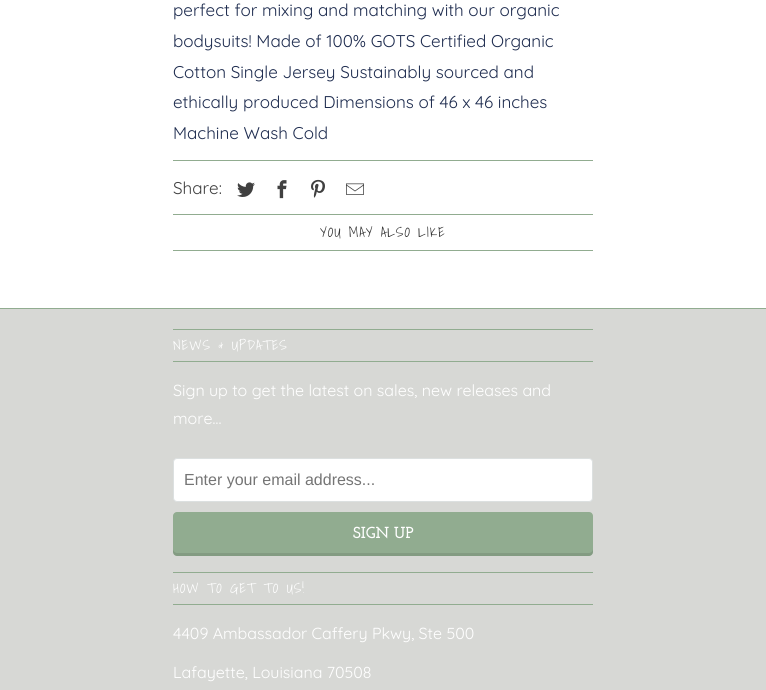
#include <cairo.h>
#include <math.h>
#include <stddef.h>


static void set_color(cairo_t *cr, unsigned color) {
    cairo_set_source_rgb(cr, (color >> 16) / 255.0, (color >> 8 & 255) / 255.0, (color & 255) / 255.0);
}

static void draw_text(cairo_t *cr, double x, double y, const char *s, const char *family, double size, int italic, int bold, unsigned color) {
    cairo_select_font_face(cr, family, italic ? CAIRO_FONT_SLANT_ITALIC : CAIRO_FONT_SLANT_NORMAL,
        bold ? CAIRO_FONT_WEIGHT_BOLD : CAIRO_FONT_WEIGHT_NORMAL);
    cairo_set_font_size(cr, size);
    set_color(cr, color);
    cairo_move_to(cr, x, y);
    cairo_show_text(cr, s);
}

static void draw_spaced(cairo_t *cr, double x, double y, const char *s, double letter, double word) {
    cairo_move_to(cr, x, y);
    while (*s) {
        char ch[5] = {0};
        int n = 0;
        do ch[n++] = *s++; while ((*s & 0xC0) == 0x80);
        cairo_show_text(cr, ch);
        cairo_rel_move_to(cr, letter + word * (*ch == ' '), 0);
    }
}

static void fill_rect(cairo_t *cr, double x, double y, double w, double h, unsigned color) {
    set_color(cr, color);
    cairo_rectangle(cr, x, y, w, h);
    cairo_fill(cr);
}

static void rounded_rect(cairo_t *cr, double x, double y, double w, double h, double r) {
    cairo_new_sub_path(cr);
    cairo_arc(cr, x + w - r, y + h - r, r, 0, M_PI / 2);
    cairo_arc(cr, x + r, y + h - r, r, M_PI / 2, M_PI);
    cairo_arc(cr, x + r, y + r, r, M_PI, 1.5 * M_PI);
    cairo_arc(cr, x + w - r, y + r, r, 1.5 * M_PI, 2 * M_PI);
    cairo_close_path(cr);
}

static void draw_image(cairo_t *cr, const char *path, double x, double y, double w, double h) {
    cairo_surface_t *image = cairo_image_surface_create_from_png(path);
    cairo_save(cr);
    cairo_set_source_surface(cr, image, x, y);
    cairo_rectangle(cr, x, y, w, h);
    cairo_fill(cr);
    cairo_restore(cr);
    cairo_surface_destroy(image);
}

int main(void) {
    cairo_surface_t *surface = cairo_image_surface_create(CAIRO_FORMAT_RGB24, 766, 690);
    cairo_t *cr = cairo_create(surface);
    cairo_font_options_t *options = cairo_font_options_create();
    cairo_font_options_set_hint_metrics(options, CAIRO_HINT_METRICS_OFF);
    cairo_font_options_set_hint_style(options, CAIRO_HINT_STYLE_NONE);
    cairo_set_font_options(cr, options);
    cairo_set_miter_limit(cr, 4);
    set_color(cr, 0xFFFFFF);
    cairo_paint(cr);
    draw_text(cr, 173, 16, "perfect for mixing and matching with our organic", "Quicksand Light", 17, 0, 0, 0x1E2C4F);
    draw_text(cr, 173, 47, "bodysuits! Made of 100% GOTS Certified Organic", "Quicksand Light", 17, 0, 0, 0x1E2C4F);
    draw_text(cr, 173, 78, "Cotton Single Jersey Sustainably sourced and", "Quicksand Light", 17, 0, 0, 0x1E2C4F);
    draw_text(cr, 173, 108, "ethically produced Dimensions of 46 x 46 inches", "Quicksand Light", 17, 0, 0, 0x1E2C4F);
    draw_text(cr, 173, 139, "Machine Wash Cold", "Quicksand Light", 17, 0, 0, 0x1E2C4F);
    fill_rect(cr, 173, 160, 420, 1, 0x91AC90);
    draw_text(cr, 173, 194, "Share:", "Quicksand Light", 17, 0, 0, 0x404040);
    draw_image(cr, "assets/img1.png", 237, 182, 18, 15);
    draw_image(cr, "assets/img2.png", 277, 180, 10, 19);
    draw_image(cr, "assets/img3.png", 311, 179, 14, 19);
    draw_image(cr, "assets/img4.png", 346, 183, 18, 12);
    fill_rect(cr, 173, 214, 420, 1, 0x91AC90);
    fill_rect(cr, 173, 250, 420, 1, 0x91AC90);
    cairo_select_font_face(cr, "Shadows Into Light", CAIRO_FONT_SLANT_NORMAL, CAIRO_FONT_WEIGHT_NORMAL);
    cairo_set_font_size(cr, 14);
    set_color(cr, 0x303030);
    draw_spaced(cr, 320, 237, "YOU MAY ALSO LIKE", 1, 0);
    fill_rect(cr, 0, 309, 766, 381, 0xD7D8D5);
    fill_rect(cr, 0, 308, 766, 1, 0x91AC90);
    fill_rect(cr, 173, 329, 420, 1, 0x91AC90);
    fill_rect(cr, 173, 361, 420, 1, 0x91AC90);
    set_color(cr, 0xFFFFFF);
    draw_spaced(cr, 173, 350, "NEWS & UPDATES", 1, 0);
    draw_text(cr, 173, 396, "Sign up to get the latest on sales, new releases and", "Quicksand Light", 16, 0, 0, 0xFFFFFF);
    draw_text(cr, 173, 424, "more…", "Quicksand Light", 16, 0, 0, 0xFFFFFF);
    rounded_rect(cr, 173.5, 458.5, 419, 43, 3.5);
    cairo_fill_preserve(cr);
    set_color(cr, 0xDCE0E0);
    cairo_set_line_width(cr, 1);
    cairo_stroke(cr);
    draw_text(cr, 184, 485, "Enter your email address...", "Liberation Sans", 16, 0, 0, 0x757575);
    set_color(cr, 0x91AC90);
    rounded_rect(cr, 173, 512, 420, 44, 4);
    cairo_fill(cr);
    cairo_set_source_rgba(cr, 0, 0, 0, 0.1);
    cairo_new_path(cr);
    cairo_move_to(cr, 173, 549);
    cairo_line_to(cr, 173, 552);
    cairo_curve_to(cr, 173, 554, 175, 556, 177, 556);
    cairo_line_to(cr, 589, 556);
    cairo_curve_to(cr, 591, 556, 593, 554, 593, 552);
    cairo_line_to(cr, 593, 549);
    cairo_curve_to(cr, 593, 551, 591, 553, 589, 553);
    cairo_line_to(cr, 177, 553);
    cairo_curve_to(cr, 175, 553, 173, 551, 173, 549);
    cairo_close_path(cr);
    cairo_fill(cr);
    draw_text(cr, 353, 538, "SIGN UP", "Josefin Slab", 16, 0, 1, 0xFFFFFF);
    fill_rect(cr, 173, 572, 420, 1, 0x91AC90);
    fill_rect(cr, 173, 604, 420, 1, 0x91AC90);
    cairo_select_font_face(cr, "Shadows Into Light", CAIRO_FONT_SLANT_NORMAL, CAIRO_FONT_WEIGHT_NORMAL);
    cairo_set_font_size(cr, 14);
    set_color(cr, 0xFFFFFF);
    draw_spaced(cr, 173, 593, "HOW TO GET TO US!", 1, 0);
    draw_text(cr, 173, 639, "4409 Ambassador Caffery Pkwy, Ste 500", "Quicksand Light", 16, 0, 0, 0xFFFFFF);
    draw_text(cr, 173, 678, "Lafayette, Louisiana 70508", "Quicksand Light", 16, 0, 0, 0xFFFFFF);
    cairo_surface_write_to_png(surface, "output.png");
    cairo_font_options_destroy(options);
    cairo_destroy(cr);
    cairo_surface_destroy(surface);
    return 0;
}
